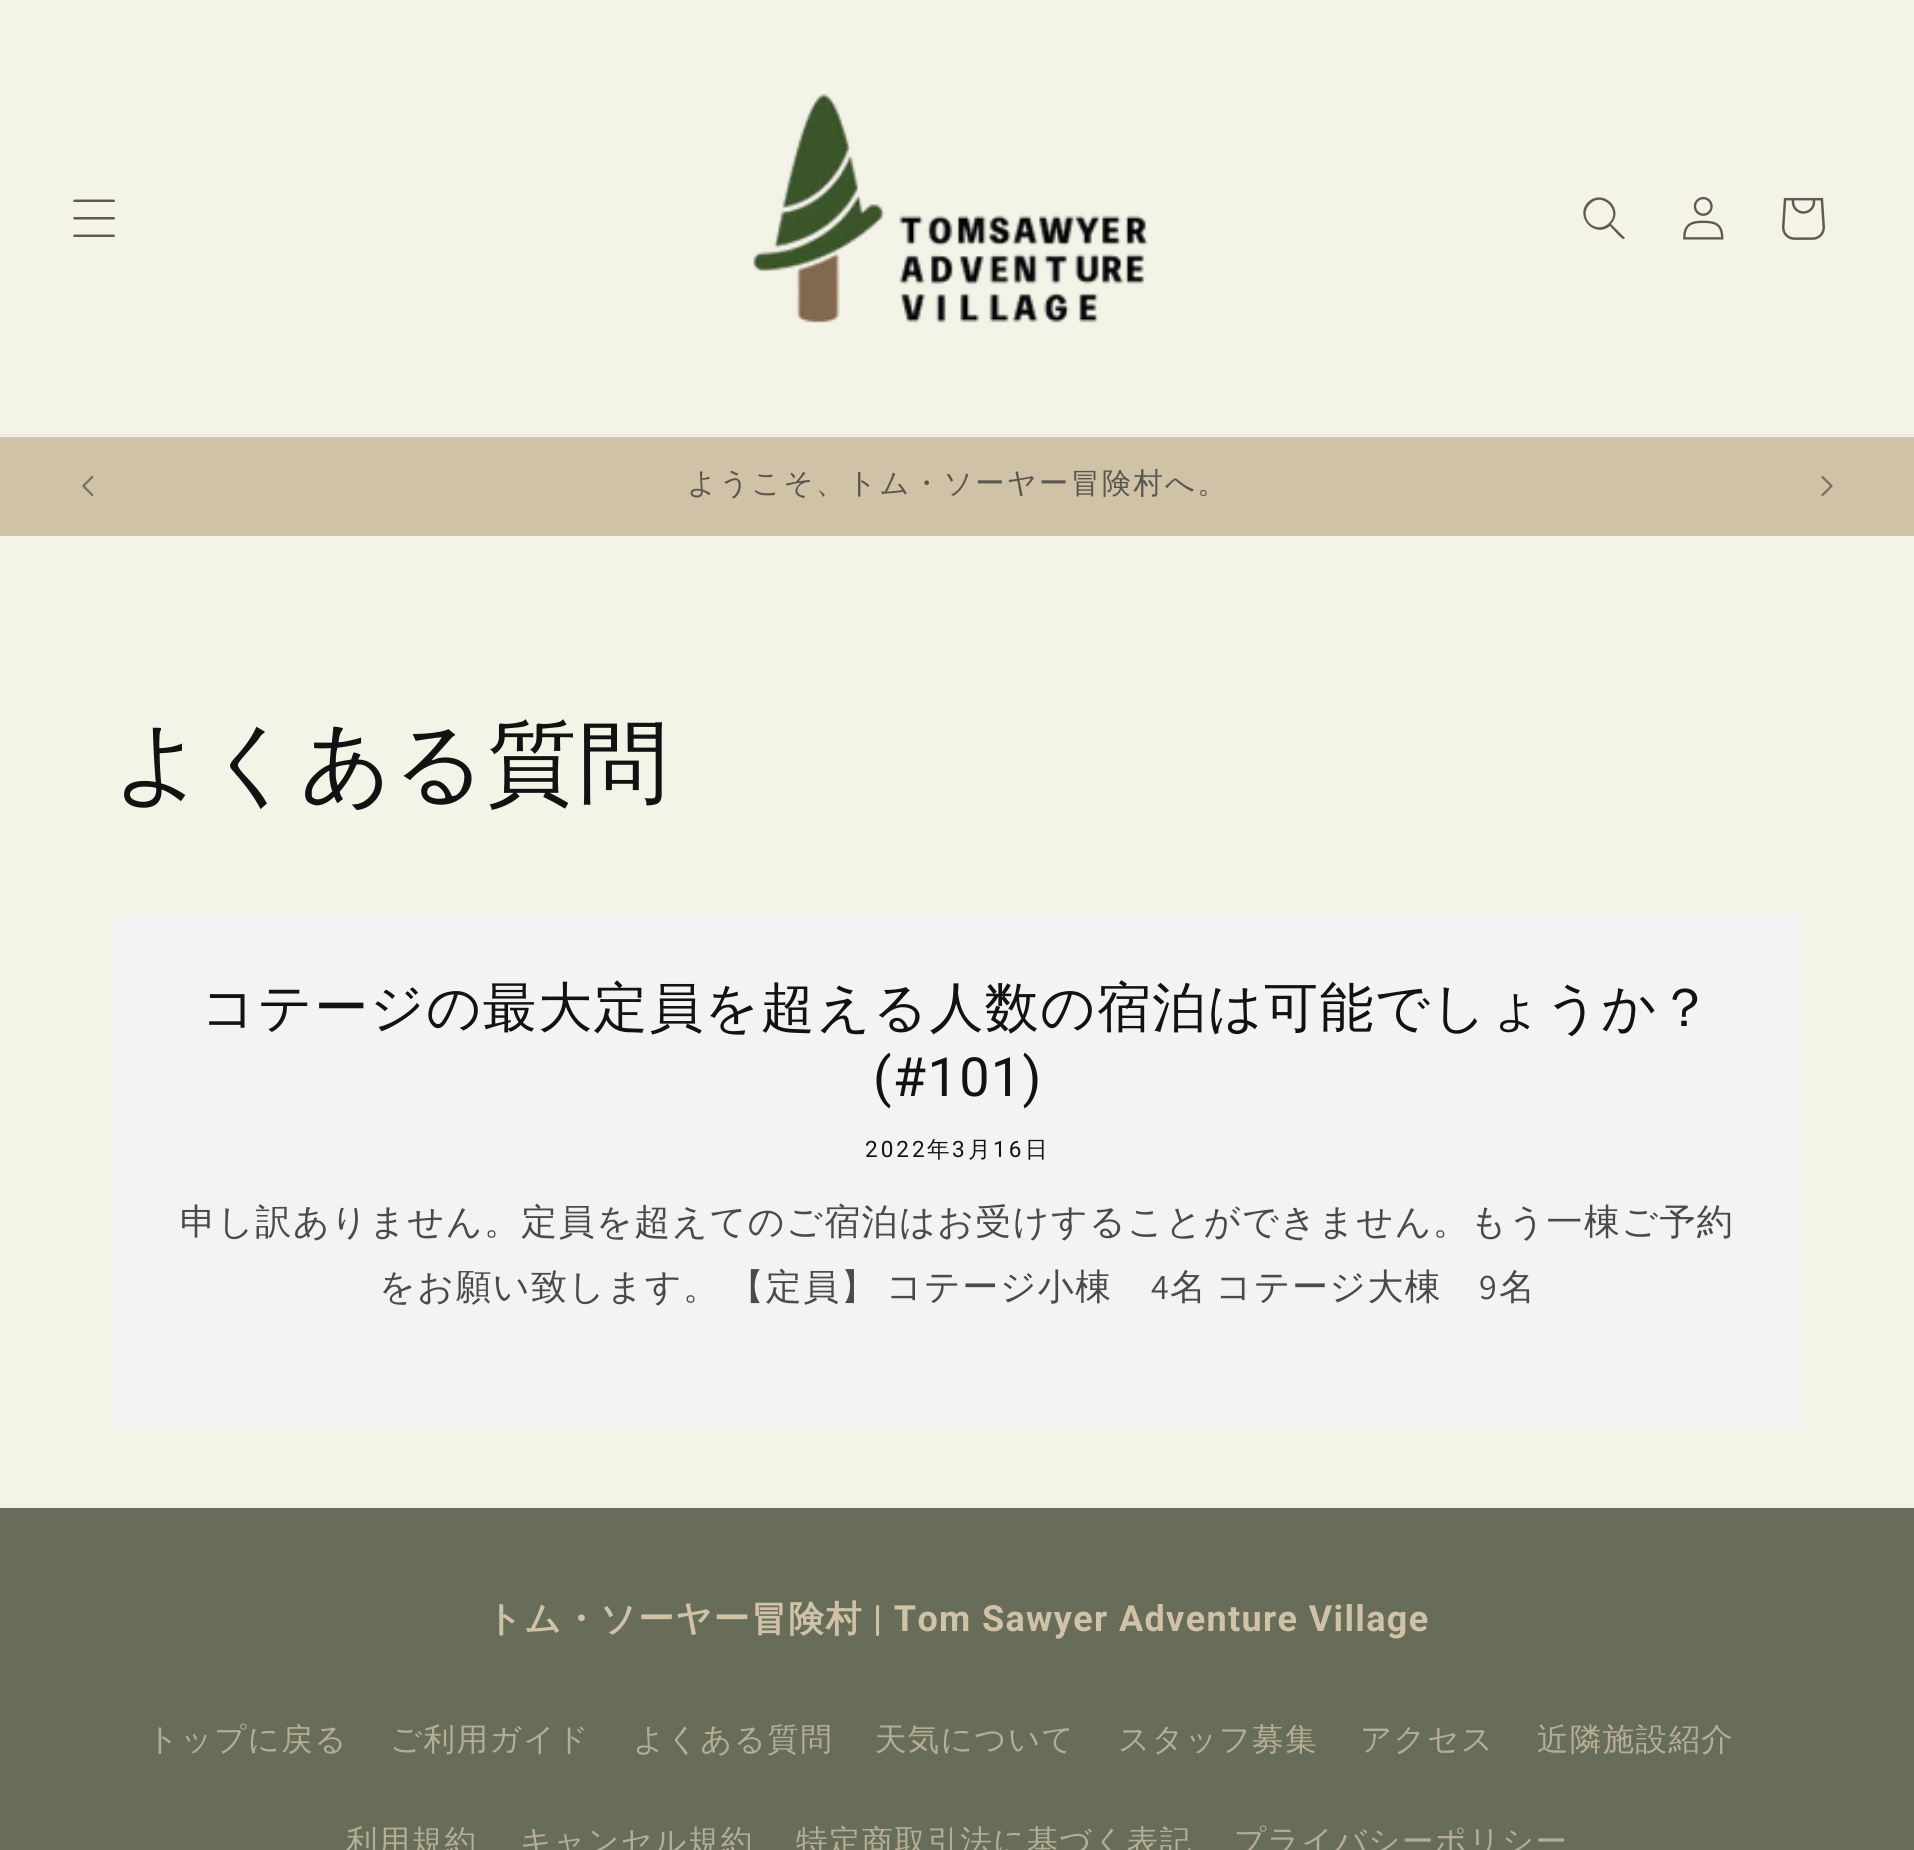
#include <cairo.h>
#include <math.h>
#include <stddef.h>


static void set_color(cairo_t *cr, unsigned color) {
    cairo_set_source_rgb(cr, (color >> 16) / 255.0, (color >> 8 & 255) / 255.0, (color & 255) / 255.0);
}

static void draw_spaced(cairo_t *cr, double x, double y, const char *s, double letter, double word) {
    cairo_move_to(cr, x, y);
    while (*s) {
        char ch[5] = {0};
        int n = 0;
        do ch[n++] = *s++; while ((*s & 0xC0) == 0x80);
        cairo_show_text(cr, ch);
        cairo_rel_move_to(cr, letter + word * (*ch == ' '), 0);
    }
}

static void fill_rect(cairo_t *cr, double x, double y, double w, double h, unsigned color) {
    set_color(cr, color);
    cairo_rectangle(cr, x, y, w, h);
    cairo_fill(cr);
}

static void draw_image(cairo_t *cr, const char *path, double x, double y, double w, double h) {
    cairo_surface_t *image = cairo_image_surface_create_from_png(path);
    cairo_save(cr);
    cairo_set_source_surface(cr, image, x, y);
    cairo_rectangle(cr, x, y, w, h);
    cairo_fill(cr);
    cairo_restore(cr);
    cairo_surface_destroy(image);
}

int main(void) {
    cairo_surface_t *surface = cairo_image_surface_create(CAIRO_FORMAT_RGB24, 1914, 1850);
    cairo_t *cr = cairo_create(surface);
    cairo_font_options_t *options = cairo_font_options_create();
    cairo_font_options_set_hint_metrics(options, CAIRO_HINT_METRICS_OFF);
    cairo_font_options_set_hint_style(options, CAIRO_HINT_STYLE_NONE);
    cairo_set_font_options(cr, options);
    cairo_set_miter_limit(cr, 4);
    set_color(cr, 0xF4F3E8);
    cairo_paint(cr);
    fill_rect(cr, 0, 434, 1914, 2, 0xE8E7DC);
    draw_image(cr, "assets/img1.png", 73, 199, 42, 38);
    draw_image(cr, "assets/img2.png", 753, 94, 395, 229);
    set_color(cr, 0x615B4D);
    cairo_set_fill_rule(cr, CAIRO_FILL_RULE_EVEN_ODD);
    cairo_new_path(cr);
    cairo_move_to(cr, 1609, 223);
    cairo_curve_to(cr, 1596, 236, 1577, 217, 1590, 204);
    cairo_curve_to(cr, 1602, 191, 1622, 211, 1609, 223);
    cairo_close_path(cr);
    cairo_move_to(cr, 1610, 226);
    cairo_curve_to(cr, 1594, 239, 1574, 216, 1588, 202);
    cairo_curve_to(cr, 1603, 188, 1625, 209, 1611, 224);
    cairo_line_to(cr, 1625, 238);
    cairo_line_to(cr, 1624, 239);
    cairo_curve_to(cr, 1622, 240, 1612, 228, 1610, 226);
    cairo_close_path(cr);
    cairo_fill(cr);
    draw_image(cr, "assets/img3.png", 1683, 196, 41, 44);
    draw_image(cr, "assets/img4.png", 1782, 197, 43, 43);
    fill_rect(cr, 0, 437, 1914, 99, 0xCFC2A7);
    draw_image(cr, "assets/img5.png", 82, 475, 12, 22);
    cairo_select_font_face(cr, "WenQuanYi Zen Hei Medium", CAIRO_FONT_SLANT_NORMAL, CAIRO_FONT_WEIGHT_NORMAL);
    cairo_set_font_size(cr, 29.25);
    set_color(cr, 0x5A574F);
    draw_spaced(cr, 687, 493, "ようこそ、トム・ソーヤー冒険村へ。", 2.25, 0);
    draw_image(cr, "assets/img6.png", 1821, 475, 12, 22);
    cairo_set_font_size(cr, 90);
    set_color(cr, 0x121212);
    draw_spaced(cr, 113, 794, "よくある質問", 1.35, 0);
    fill_rect(cr, 113, 914, 1689, 513, 0xF3F3F3);
    cairo_set_font_size(cr, 54);
    set_color(cr, 0x121212);
    draw_spaced(cr, 201, 1026, "コテージの最大定員を超える人数の宿泊は可能でしょうか？", 1.35, 0);
    cairo_select_font_face(cr, "Roboto", CAIRO_FONT_SLANT_NORMAL, CAIRO_FONT_WEIGHT_NORMAL);
    draw_spaced(cr, 873, 1096, "(#101)", 1.35, 0);
    cairo_set_font_size(cr, 22.5);
    draw_spaced(cr, 865, 1157, "2022", 3, 0);
    cairo_select_font_face(cr, "WenQuanYi Zen Hei Medium", CAIRO_FONT_SLANT_NORMAL, CAIRO_FONT_WEIGHT_NORMAL);
    draw_spaced(cr, 927, 1157, "年", 3, 0);
    cairo_select_font_face(cr, "Roboto", CAIRO_FONT_SLANT_NORMAL, CAIRO_FONT_WEIGHT_NORMAL);
    draw_spaced(cr, 952, 1157, "3", 3, 0);
    cairo_select_font_face(cr, "WenQuanYi Zen Hei Medium", CAIRO_FONT_SLANT_NORMAL, CAIRO_FONT_WEIGHT_NORMAL);
    draw_spaced(cr, 968, 1157, "月", 3, 0);
    cairo_select_font_face(cr, "Roboto", CAIRO_FONT_SLANT_NORMAL, CAIRO_FONT_WEIGHT_NORMAL);
    draw_spaced(cr, 993, 1157, "16", 3, 0);
    cairo_select_font_face(cr, "WenQuanYi Zen Hei Medium", CAIRO_FONT_SLANT_NORMAL, CAIRO_FONT_WEIGHT_NORMAL);
    draw_spaced(cr, 1025, 1157, "日", 3, 0);
    cairo_set_font_size(cr, 36);
    set_color(cr, 0x4A4A4A);
    draw_spaced(cr, 180, 1234, "申し訳ありません。定員を超えてのご宿泊はお受けすることができません。もう一棟ご予約", 1.35, 0);
    draw_spaced(cr, 379, 1299, "をお願い致します。 【定員】 コテージ小棟", 1.35, -4);
    cairo_select_font_face(cr, "Assistant", CAIRO_FONT_SLANT_NORMAL, CAIRO_FONT_WEIGHT_NORMAL);
    draw_spaced(cr, 1151, 1299, "4", 1.35, 0);
    cairo_select_font_face(cr, "WenQuanYi Zen Hei Medium", CAIRO_FONT_SLANT_NORMAL, CAIRO_FONT_WEIGHT_NORMAL);
    draw_spaced(cr, 1170, 1299, "名 コテージ大棟", 1.35, -4);
    cairo_select_font_face(cr, "Assistant", CAIRO_FONT_SLANT_NORMAL, CAIRO_FONT_WEIGHT_NORMAL);
    draw_spaced(cr, 1479, 1299, "9", 1.35, 0);
    cairo_select_font_face(cr, "WenQuanYi Zen Hei Medium", CAIRO_FONT_SLANT_NORMAL, CAIRO_FONT_WEIGHT_NORMAL);
    draw_spaced(cr, 1499, 1299, "名", 1.35, 0);
    fill_rect(cr, 0, 1508, 1914, 342, 0x676D59);
    cairo_select_font_face(cr, "WenQuanYi Zen Hei", CAIRO_FONT_SLANT_NORMAL, CAIRO_FONT_WEIGHT_BOLD);
    set_color(cr, 0xCFC2A7);
    draw_spaced(cr, 486, 1631, "トム・ソーヤー冒険村", 1.35, 0);
    cairo_select_font_face(cr, "Roboto", CAIRO_FONT_SLANT_NORMAL, CAIRO_FONT_WEIGHT_BOLD);
    draw_spaced(cr, 873, 1631, "| Tom Sawyer Adventure Village", 1.35, 0);
    cairo_select_font_face(cr, "WenQuanYi Zen Hei Medium", CAIRO_FONT_SLANT_NORMAL, CAIRO_FONT_WEIGHT_NORMAL);
    cairo_set_font_size(cr, 31.5);
    set_color(cr, 0xB5AD94);
    draw_spaced(cr, 147, 1750, "トップに戻る", 1.35, 0);
    draw_spaced(cr, 390, 1750, "ご利用ガイド", 1.35, 0);
    draw_spaced(cr, 633, 1750, "よくある質問", 1.35, 0);
    draw_spaced(cr, 875, 1750, "天気について", 1.35, 0);
    draw_spaced(cr, 1118, 1750, "スタッフ募集", 1.35, 0);
    draw_spaced(cr, 1360, 1750, "アクセス", 1.35, 0);
    draw_spaced(cr, 1537, 1750, "近隣施設紹介", 1.35, 0);
    draw_spaced(cr, 346, 1852, "利用規約", 1.35, 0);
    draw_spaced(cr, 520, 1852, "キャンセル規約", 1.35, 0);
    draw_spaced(cr, 796, 1852, "特定商取引法に基づく表記", 1.35, 0);
    draw_spaced(cr, 1234, 1852, "プライバシーポリシー", 1.35, 0);
    cairo_surface_write_to_png(surface, "output.png");
    cairo_font_options_destroy(options);
    cairo_destroy(cr);
    cairo_surface_destroy(surface);
    return 0;
}
